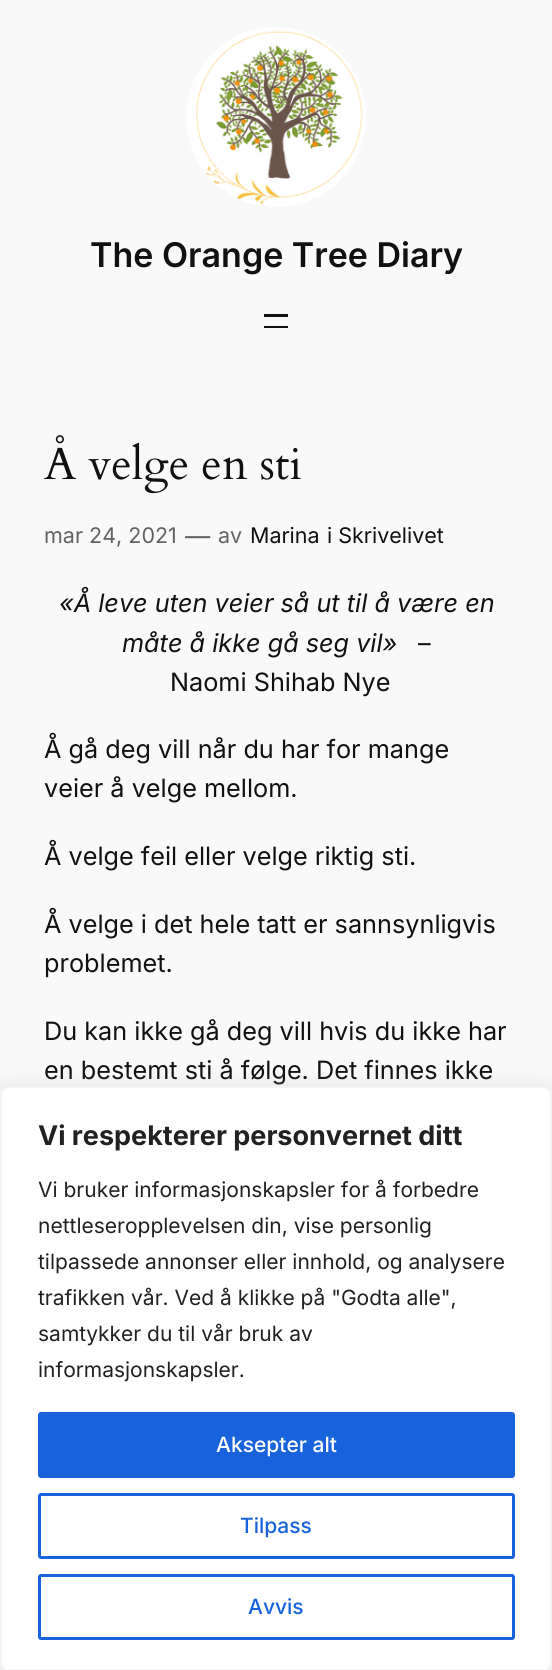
#include <cairo.h>
#include <math.h>
#include <stddef.h>


static void set_color(cairo_t *cr, unsigned color) {
    cairo_set_source_rgb(cr, (color >> 16) / 255.0, (color >> 8 & 255) / 255.0, (color & 255) / 255.0);
}

static void draw_text(cairo_t *cr, double x, double y, const char *s, const char *family, double size, int italic, int bold, unsigned color) {
    cairo_select_font_face(cr, family, italic ? CAIRO_FONT_SLANT_ITALIC : CAIRO_FONT_SLANT_NORMAL,
        bold ? CAIRO_FONT_WEIGHT_BOLD : CAIRO_FONT_WEIGHT_NORMAL);
    cairo_set_font_size(cr, size);
    set_color(cr, color);
    cairo_move_to(cr, x, y);
    cairo_show_text(cr, s);
}

static void fill_rect(cairo_t *cr, double x, double y, double w, double h, unsigned color) {
    set_color(cr, color);
    cairo_rectangle(cr, x, y, w, h);
    cairo_fill(cr);
}

static void rounded_rect(cairo_t *cr, double x, double y, double w, double h, double r) {
    cairo_new_sub_path(cr);
    cairo_arc(cr, x + w - r, y + h - r, r, 0, M_PI / 2);
    cairo_arc(cr, x + r, y + h - r, r, M_PI / 2, M_PI);
    cairo_arc(cr, x + r, y + r, r, M_PI, 1.5 * M_PI);
    cairo_arc(cr, x + w - r, y + r, r, 1.5 * M_PI, 2 * M_PI);
    cairo_close_path(cr);
}

static void draw_shadow(cairo_t *cr, double x, double y, double w, double h, double r, double blur, double alpha) {
    cairo_push_group_with_content(cr, CAIRO_CONTENT_ALPHA);
    cairo_set_operator(cr, CAIRO_OPERATOR_SOURCE);
    for (int i = 15; i >= -15 && fmin(w, h) + blur * i / 3 > 0; i -= 2) {
        double e = blur * i / 6;
        cairo_set_source_rgba(cr, 0, 0, 0, alpha * erfc((i - 1) / 8.5) / 2);
        rounded_rect(cr, x - e, y - e, w + 2 * e, h + 2 * e, fmax(0, fmin(r + e + blur * .6, fmin(w, h) / 2 + e)));
        cairo_fill(cr);
    }
    cairo_pattern_t *soft = cairo_pop_group(cr);
    cairo_mask(cr, soft);
    cairo_pattern_destroy(soft);
}

static void draw_image(cairo_t *cr, const char *path, double x, double y, double w, double h) {
    cairo_surface_t *image = cairo_image_surface_create_from_png(path);
    cairo_save(cr);
    cairo_set_source_surface(cr, image, x, y);
    cairo_rectangle(cr, x, y, w, h);
    cairo_fill(cr);
    cairo_restore(cr);
    cairo_surface_destroy(image);
}

int main(void) {
    cairo_surface_t *surface = cairo_image_surface_create(CAIRO_FORMAT_RGB24, 552, 1670);
    cairo_t *cr = cairo_create(surface);
    cairo_font_options_t *options = cairo_font_options_create();
    cairo_font_options_set_hint_metrics(options, CAIRO_HINT_METRICS_OFF);
    cairo_font_options_set_hint_style(options, CAIRO_HINT_STYLE_NONE);
    cairo_set_font_options(cr, options);
    cairo_set_miter_limit(cr, 4);
    set_color(cr, 0xF9F9F9);
    cairo_paint(cr);
    draw_image(cr, "assets/img1.png", 186, 27, 180, 180);
    draw_text(cr, 90, 267, "The Orange Tree Diary", "Inter SemiBold", 34, 0, 0, 0x111111);
    fill_rect(cr, 264, 314, 24, 3, 0x111111);
    fill_rect(cr, 264, 326, 24, 2, 0x111111);
    draw_text(cr, 44, 479, "Å velge en sti", "Cardo", 45.25, 0, 0, 0x111111);
    draw_text(cr, 44, 543, "mar 24, 2021", "Inter", 21.5, 0, 0, 0x636363);
    draw_text(cr, 185, 545, "—", "Inter", 25.25, 0, 0, 0x636363);
    draw_text(cr, 218, 543, "av", "Inter", 21.5, 0, 0, 0x636363);
    draw_text(cr, 250, 543, "Marina", "Inter", 21.5, 0, 0, 0x111111);
    draw_text(cr, 327, 543, "i Skrivelivet", "Inter", 21.5, 0, 0, 0x111111);
    draw_text(cr, 59, 612, "«Å leve uten veier så ut til å være en", "Inter", 25.25, 1, 0, 0x111111);
    draw_text(cr, 122, 652, "måte å ikke gå seg vil»", "Inter", 25.25, 1, 0, 0x111111);
    draw_text(cr, 418, 652, "–", "Inter", 25.25, 0, 0, 0x111111);
    draw_text(cr, 170, 691, "Naomi Shihab Nye", "Inter", 25.25, 0, 0, 0x111111);
    draw_text(cr, 44, 758, "Å gå deg vill når du har for mange", "Inter", 25.25, 0, 0, 0x111111);
    draw_text(cr, 44, 797, "veier å velge mellom.", "Inter", 25.25, 0, 0, 0x111111);
    draw_text(cr, 44, 865, "Å velge feil eller velge riktig sti.", "Inter", 25.25, 0, 0, 0x111111);
    draw_text(cr, 44, 933, "Å velge i det hele tatt er sannsynligvis", "Inter", 25.25, 0, 0, 0x111111);
    draw_text(cr, 44, 972, "problemet.", "Inter", 25.25, 0, 0, 0x111111);
    draw_text(cr, 44, 1040, "Du kan ikke gå deg vill hvis du ikke har", "Inter", 25.25, 0, 0, 0x111111);
    draw_text(cr, 44, 1079, "en bestemt sti å følge. Det finnes ikke", "Inter", 25.25, 0, 0, 0x111111);
    set_color(cr, 0xACABAB);
    draw_shadow(cr, 0, 1085, 552, 585, 9, 7.5, 0.3);
    set_color(cr, 0xFFFFFF);
    rounded_rect(cr, 1, 1087, 550, 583, 8);
    cairo_fill_preserve(cr);
    set_color(cr, 0xF4F4F4);
    cairo_stroke(cr);
    draw_text(cr, 38, 1145, "Vi respekterer personvernet ditt", "Inter", 27, 0, 1, 0x212121);
    draw_text(cr, 38, 1197, "Vi bruker informasjonskapsler for å forbedre", "Inter", 21, 0, 0, 0x212121);
    draw_text(cr, 38, 1233, "nettleseropplevelsen din, vise personlig", "Inter", 21, 0, 0, 0x212121);
    draw_text(cr, 38, 1269, "tilpassede annonser eller innhold, og analysere", "Inter", 21, 0, 0, 0x212121);
    draw_text(cr, 38, 1305, "trafikken vår. Ved å klikke på \"Godta alle\",", "Inter", 21, 0, 0, 0x212121);
    draw_text(cr, 38, 1341, "samtykker du til vår bruk av", "Inter", 21, 0, 0, 0x212121);
    draw_text(cr, 38, 1377, "informasjonskapsler.", "Inter", 21, 0, 0, 0x212121);
    set_color(cr, 0x1863DC);
    rounded_rect(cr, 39.5, 1413.5, 474, 63, 1.5);
    cairo_fill_preserve(cr);
    cairo_set_line_width(cr, 3);
    cairo_stroke(cr);
    draw_text(cr, 216, 1452, "Aksepter alt", "Inter Medium", 21, 0, 0, 0xFFFFFF);
    rounded_rect(cr, 39.5, 1494.5, 474, 63, 1.5);
    set_color(cr, 0x1863DC);
    cairo_stroke(cr);
    draw_text(cr, 240, 1533, "Tilpass", "Inter Medium", 21, 0, 0, 0x1863DC);
    rounded_rect(cr, 39.5, 1575.5, 474, 63, 1.5);
    cairo_stroke(cr);
    draw_text(cr, 248, 1614, "Avvis", "Inter Medium", 21, 0, 0, 0x1863DC);
    cairo_surface_write_to_png(surface, "output.png");
    cairo_font_options_destroy(options);
    cairo_destroy(cr);
    cairo_surface_destroy(surface);
    return 0;
}
